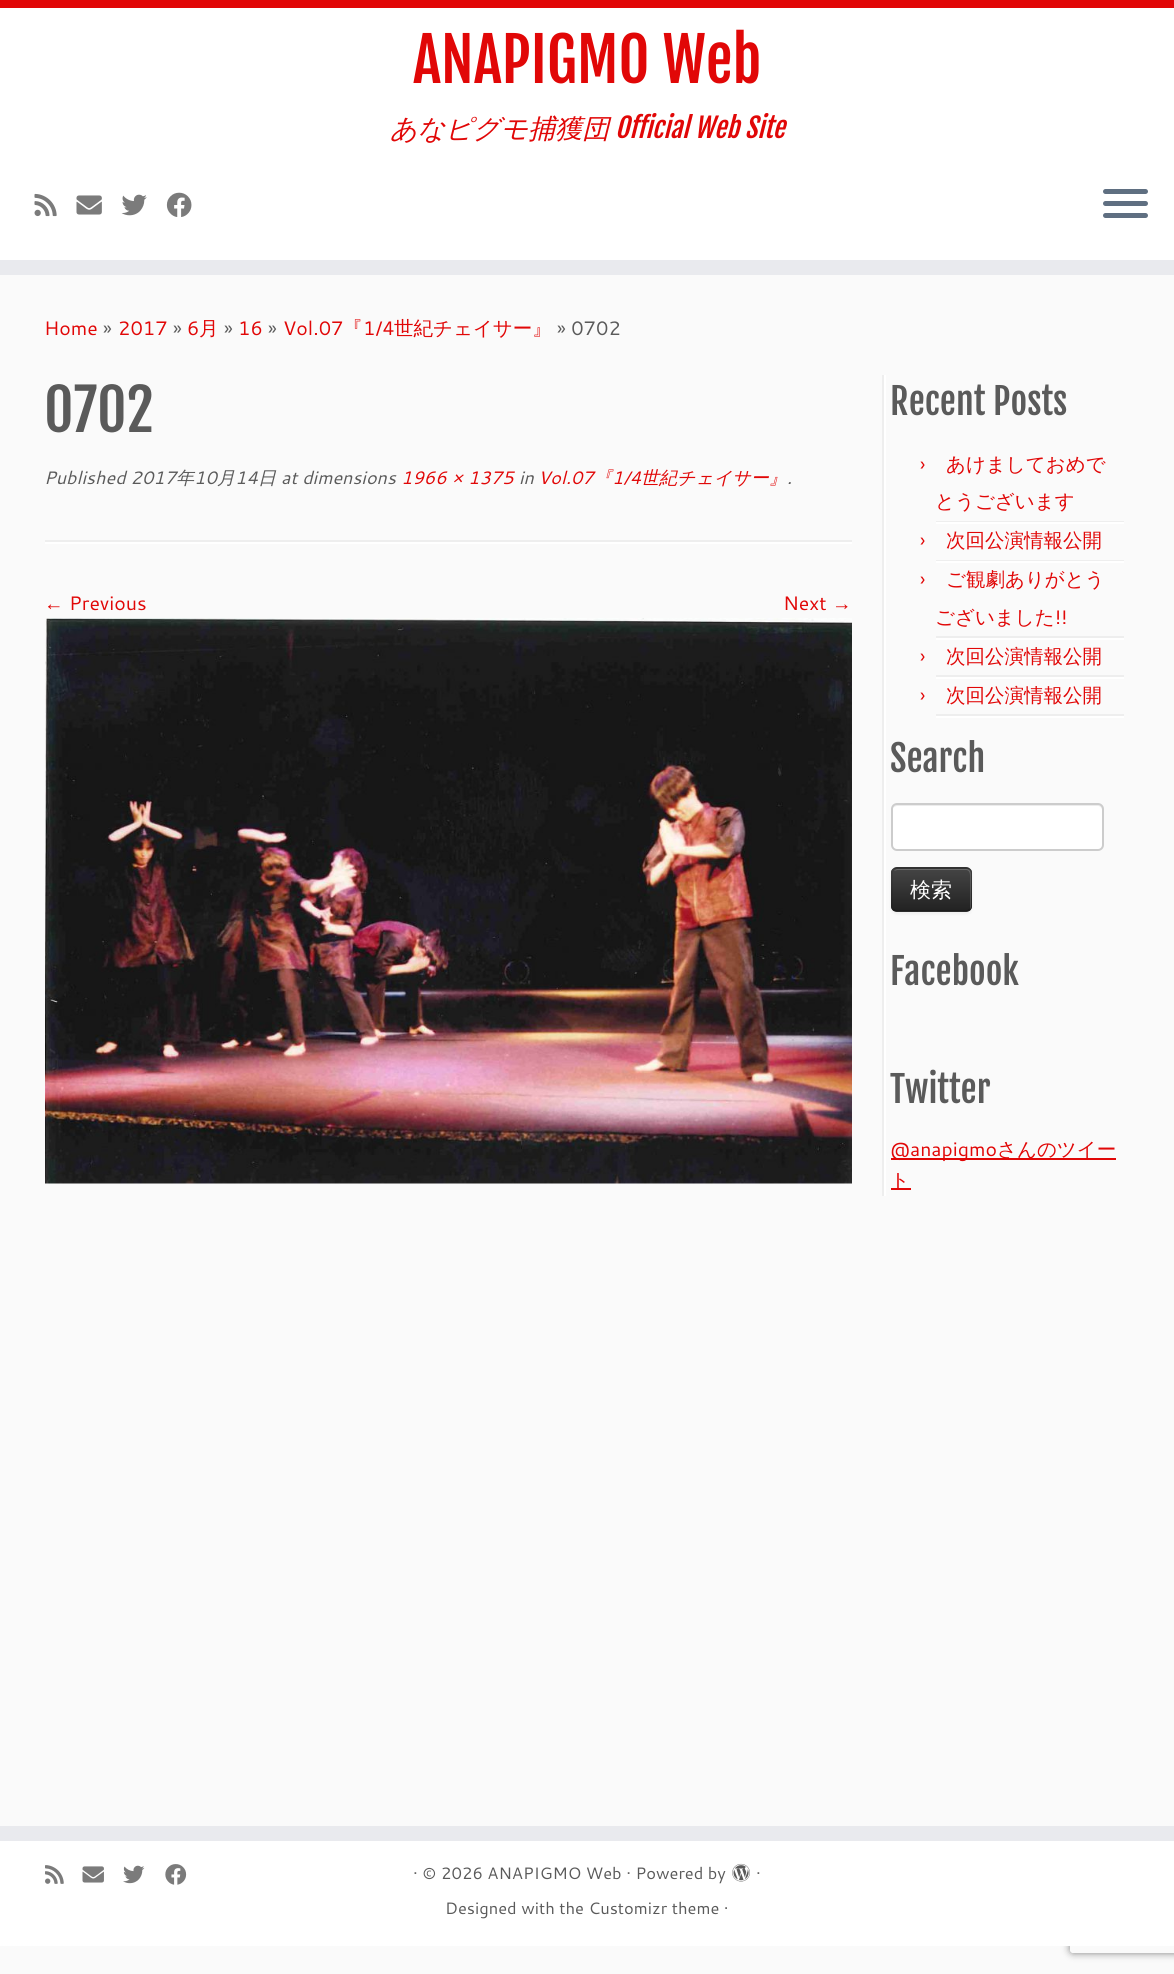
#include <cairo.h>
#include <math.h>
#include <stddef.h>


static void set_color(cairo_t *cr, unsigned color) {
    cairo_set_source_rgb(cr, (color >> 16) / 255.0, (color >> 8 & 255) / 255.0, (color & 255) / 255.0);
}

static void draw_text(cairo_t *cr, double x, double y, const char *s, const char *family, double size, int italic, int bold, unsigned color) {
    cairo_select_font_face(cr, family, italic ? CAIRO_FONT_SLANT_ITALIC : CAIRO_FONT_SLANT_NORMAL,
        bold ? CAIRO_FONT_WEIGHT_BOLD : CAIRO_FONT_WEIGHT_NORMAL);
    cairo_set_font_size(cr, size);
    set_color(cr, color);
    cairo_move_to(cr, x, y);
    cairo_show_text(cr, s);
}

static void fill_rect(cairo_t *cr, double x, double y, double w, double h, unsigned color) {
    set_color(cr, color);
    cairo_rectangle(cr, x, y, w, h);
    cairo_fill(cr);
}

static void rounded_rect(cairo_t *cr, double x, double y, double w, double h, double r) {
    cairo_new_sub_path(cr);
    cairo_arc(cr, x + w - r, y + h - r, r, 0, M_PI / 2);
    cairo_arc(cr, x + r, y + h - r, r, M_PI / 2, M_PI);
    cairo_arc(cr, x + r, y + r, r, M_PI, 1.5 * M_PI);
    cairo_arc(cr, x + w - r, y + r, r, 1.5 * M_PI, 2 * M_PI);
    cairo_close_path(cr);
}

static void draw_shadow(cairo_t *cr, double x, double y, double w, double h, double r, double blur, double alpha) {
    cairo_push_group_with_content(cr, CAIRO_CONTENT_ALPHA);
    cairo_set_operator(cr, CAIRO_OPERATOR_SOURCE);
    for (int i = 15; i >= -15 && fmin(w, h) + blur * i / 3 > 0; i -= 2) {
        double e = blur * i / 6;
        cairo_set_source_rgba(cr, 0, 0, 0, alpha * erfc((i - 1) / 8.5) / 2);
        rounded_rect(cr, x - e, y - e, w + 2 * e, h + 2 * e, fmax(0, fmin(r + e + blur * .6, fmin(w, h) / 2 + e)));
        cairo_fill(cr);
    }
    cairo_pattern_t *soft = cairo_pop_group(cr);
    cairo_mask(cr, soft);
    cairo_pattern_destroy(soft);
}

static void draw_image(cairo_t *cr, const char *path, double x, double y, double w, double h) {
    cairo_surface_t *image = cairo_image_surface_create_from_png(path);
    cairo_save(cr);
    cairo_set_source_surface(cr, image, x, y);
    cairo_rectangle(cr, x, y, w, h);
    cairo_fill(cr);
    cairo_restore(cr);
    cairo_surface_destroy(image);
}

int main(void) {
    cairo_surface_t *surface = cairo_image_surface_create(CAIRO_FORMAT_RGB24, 1174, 1974);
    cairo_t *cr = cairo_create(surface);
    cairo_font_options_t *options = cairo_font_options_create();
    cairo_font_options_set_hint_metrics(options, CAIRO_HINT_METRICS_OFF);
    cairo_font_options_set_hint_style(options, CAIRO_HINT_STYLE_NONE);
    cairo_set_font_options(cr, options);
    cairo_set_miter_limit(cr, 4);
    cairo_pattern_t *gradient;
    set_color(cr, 0xFAFAFA);
    cairo_paint(cr);
    fill_rect(cr, 0, 8, 1174, 252, 0xFFFFFF);
    fill_rect(cr, 0, 0, 1174, 8, 0xE10707);
    fill_rect(cr, 0, 260, 1174, 15, 0xE9EAEE);
    draw_text(cr, 413, 83, "ANAPIGMO Web", "Fjalla One", 60, 0, 0, 0xE10707);
    draw_text(cr, 390, 138, "あなピグモ捕獲団", "WenQuanYi Zen Hei Medium", 27, 1, 0, 0xE10707);
    draw_text(cr, 615, 138, "Official Web Site", "Fjalla One", 27, 1, 0, 0xE10707);
    draw_image(cr, "assets/img1.png", 34, 193, 23, 24);
    draw_image(cr, "assets/img2.png", 76, 195, 26, 20);
    draw_image(cr, "assets/img3.png", 121, 194, 26, 22);
    draw_image(cr, "assets/img4.png", 166, 192, 26, 25);
    set_color(cr, 0x5F6F81);
    rounded_rect(cr, 1103, 189, 45, 5, 2.5);
    cairo_fill(cr);
    rounded_rect(cr, 1103, 201, 45, 5, 2.5);
    cairo_fill(cr);
    rounded_rect(cr, 1103, 213, 45, 5, 2.5);
    cairo_fill(cr);
    draw_text(cr, 44, 335, "Home", "Cantarell", 19.5, 0, 0, 0xE10707);
    draw_text(cr, 103, 335, "»", "Cantarell", 19.5, 0, 0, 0x5A5A5A);
    draw_text(cr, 118, 335, "2017", "Cantarell", 19.5, 0, 0, 0xE10707);
    draw_text(cr, 173, 335, "»", "Cantarell", 19.5, 0, 0, 0x5A5A5A);
    draw_text(cr, 187, 335, "6", "Cantarell", 19.5, 0, 0, 0xE10707);
    draw_text(cr, 199, 335, "月", "WenQuanYi Zen Hei Medium", 19.5, 0, 0, 0xE10707);
    draw_text(cr, 224, 335, "»", "Cantarell", 19.5, 0, 0, 0x5A5A5A);
    draw_text(cr, 238, 335, "16", "Cantarell", 19.5, 0, 0, 0xE10707);
    draw_text(cr, 268, 335, "»", "Cantarell", 19.5, 0, 0, 0x5A5A5A);
    draw_text(cr, 283, 335, "Vol.07", "Cantarell", 19.5, 0, 0, 0xE10707);
    draw_text(cr, 343, 335, "『", "WenQuanYi Zen Hei Medium", 19.5, 0, 0, 0xE10707);
    draw_text(cr, 363, 335, "1/4", "Cantarell", 19.5, 0, 0, 0xE10707);
    draw_text(cr, 394, 335, "世紀チェイサー』", "WenQuanYi Zen Hei Medium", 19.5, 0, 0, 0xE10707);
    draw_text(cr, 557, 335, "» 0702", "Cantarell", 19.5, 0, 0, 0x5A5A5A);
    draw_text(cr, 44, 432, "0702", "Fjalla One", 57, 0, 0, 0x5A5A5A);
    draw_text(cr, 44, 484, "Published 2017", "Cantarell", 18, 1, 0, 0x5A5A5A);
    draw_text(cr, 176, 484, "年", "WenQuanYi Zen Hei Medium", 18, 1, 0, 0x5A5A5A);
    draw_text(cr, 194, 484, "10", "Cantarell", 18, 1, 0, 0x5A5A5A);
    draw_text(cr, 217, 484, "月", "WenQuanYi Zen Hei Medium", 18, 1, 0, 0x5A5A5A);
    draw_text(cr, 235, 484, "14", "Cantarell", 18, 1, 0, 0x5A5A5A);
    draw_text(cr, 258, 484, "日", "WenQuanYi Zen Hei Medium", 18, 1, 0, 0x5A5A5A);
    draw_text(cr, 281, 484, "at dimensions", "Cantarell", 18, 1, 0, 0x5A5A5A);
    draw_text(cr, 401, 484, "1966 × 1375", "Cantarell", 18, 1, 0, 0xE10707);
    draw_text(cr, 519, 484, "in", "Cantarell", 18, 1, 0, 0x5A5A5A);
    draw_text(cr, 538, 484, "Vol.07", "Cantarell", 18, 1, 0, 0xE10707);
    draw_text(cr, 594, 484, "『", "WenQuanYi Zen Hei Medium", 18, 1, 0, 0xE10707);
    draw_text(cr, 612, 484, "1/4", "Cantarell", 18, 1, 0, 0xE10707);
    draw_text(cr, 641, 484, "世紀チェイサー』", "WenQuanYi Zen Hei Medium", 18, 1, 0, 0xE10707);
    draw_text(cr, 787, 484, ".", "Cantarell", 18, 1, 0, 0x5A5A5A);
    fill_rect(cr, 45, 540, 807, 2, 0xEEEEEE);
    fill_rect(cr, 45, 542, 807, 2, 0xFFFFFF);
    draw_text(cr, 44, 610, "←", "Liberation Serif", 19.5, 0, 0, 0xE10707);
    draw_text(cr, 69, 610, "Previous", "Cantarell", 19.5, 0, 0, 0xE10707);
    draw_text(cr, 783, 610, "Next", "Cantarell", 19.5, 0, 0, 0xE10707);
    draw_text(cr, 832, 610, "→", "Liberation Serif", 19.5, 0, 0, 0xE10707);
    draw_image(cr, "assets/img5.png", 45, 618, 807, 566);
    fill_rect(cr, 882, 375, 2, 821, 0xEEEEEE);
    set_color(cr, 0x000000);
    draw_shadow(cr, 891, 869, 81, 45, 6, 1.5, 0.05);
    fill_rect(cr, 884, 375, 2, 821, 0xFFFFFF);
    draw_text(cr, 890, 415, "Recent Posts", "Fjalla One", 36, 0, 0, 0x5A5A5A);
    fill_rect(cr, 936, 521, 188, 1, 0xEEEEEE);
    draw_text(cr, 920, 471, "›", "Cantarell", 19.5, 0, 0, 0xE10707);
    draw_text(cr, 946, 471, "あけましておめで", "WenQuanYi Zen Hei Medium", 19.5, 0, 0, 0xE10707);
    draw_text(cr, 935, 508, "とうございます", "WenQuanYi Zen Hei Medium", 19.5, 0, 0, 0xE10707);
    fill_rect(cr, 936, 522, 188, 2, 0xFFFFFF);
    fill_rect(cr, 936, 560, 188, 1, 0xEEEEEE);
    draw_text(cr, 920, 547, "›", "Cantarell", 19.5, 0, 0, 0xE10707);
    draw_text(cr, 946, 547, "次回公演情報公開", "WenQuanYi Zen Hei Medium", 19.5, 0, 0, 0xE10707);
    fill_rect(cr, 936, 561, 188, 2, 0xFFFFFF);
    fill_rect(cr, 936, 636, 188, 2, 0xEEEEEE);
    draw_text(cr, 920, 586, "›", "Cantarell", 19.5, 0, 0, 0xE10707);
    draw_text(cr, 946, 586, "ご観劇ありがとう", "WenQuanYi Zen Hei Medium", 19.5, 0, 0, 0xE10707);
    draw_text(cr, 935, 624, "ございました", "WenQuanYi Zen Hei Medium", 19.5, 0, 0, 0xE10707);
    draw_text(cr, 1055, 624, "!!", "Cantarell", 19.5, 0, 0, 0xE10707);
    fill_rect(cr, 936, 638, 188, 2, 0xFFFFFF);
    fill_rect(cr, 936, 675, 188, 2, 0xEEEEEE);
    draw_text(cr, 920, 663, "›", "Cantarell", 19.5, 0, 0, 0xE10707);
    draw_text(cr, 946, 663, "次回公演情報公開", "WenQuanYi Zen Hei Medium", 19.5, 0, 0, 0xE10707);
    fill_rect(cr, 936, 677, 188, 2, 0xFFFFFF);
    fill_rect(cr, 936, 714, 188, 2, 0xEEEEEE);
    draw_text(cr, 920, 702, "›", "Cantarell", 19.5, 0, 0, 0xE10707);
    draw_text(cr, 946, 702, "次回公演情報公開", "WenQuanYi Zen Hei Medium", 19.5, 0, 0, 0xE10707);
    fill_rect(cr, 936, 716, 188, 2, 0xFFFFFF);
    draw_text(cr, 890, 772, "Search", "Fjalla One", 36, 0, 0, 0x5A5A5A);
    set_color(cr, 0xFFFFFF);
    rounded_rect(cr, 891, 803, 213, 48, 6);
    cairo_fill(cr);
    set_color(cr, 0xECECEC);
    cairo_new_path(cr);
    cairo_move_to(cr, 897, 806);
    cairo_line_to(cr, 1098, 806);
    cairo_curve_to(cr, 1100, 806, 1102, 808, 1102, 810);
    cairo_line_to(cr, 1102, 847);
    cairo_curve_to(cr, 1103, 846, 1103, 845, 1103, 844);
    cairo_line_to(cr, 1103, 809);
    cairo_curve_to(cr, 1103, 806, 1101, 804, 1098, 804);
    cairo_line_to(cr, 898, 804);
    cairo_curve_to(cr, 896, 804, 894, 806, 893, 808);
    cairo_curve_to(cr, 894, 807, 896, 806, 897, 806);
    cairo_close_path(cr);
    cairo_fill(cr);
    rounded_rect(cr, 892, 804, 211, 46, 5);
    set_color(cr, 0xCCCCCC);
    cairo_stroke(cr);
    set_color(cr, 0x363636);
    rounded_rect(cr, 891, 867, 81, 45, 6);
    cairo_fill(cr);
    cairo_save(cr);
    rounded_rect(cr, 891, 867, 81, 45, 6);
    cairo_clip(cr);
    gradient = cairo_pattern_create_linear(932, 869, 932, 911);
    cairo_pattern_add_color_stop_rgba(gradient, 0, 0.267, 0.267, 0.267, 1);
    cairo_pattern_add_color_stop_rgba(gradient, 1, 0.133, 0.133, 0.133, 1);
    cairo_set_source(cr, gradient);
    cairo_pattern_destroy(gradient);
    cairo_rectangle(cr, 891, 869, 81, 42);
    cairo_fill(cr);
    cairo_restore(cr);
    cairo_set_source_rgba(cr, 1, 1, 1, 0.2);
    cairo_new_path(cr);
    cairo_move_to(cr, 897, 870);
    cairo_line_to(cr, 966, 870);
    cairo_curve_to(cr, 971, 870, 970, 877, 970, 880);
    cairo_line_to(cr, 970, 909);
    cairo_curve_to(cr, 971, 908, 971, 907, 971, 906);
    cairo_line_to(cr, 971, 874);
    cairo_curve_to(cr, 971, 871, 969, 869, 966, 869);
    cairo_line_to(cr, 898, 869);
    cairo_curve_to(cr, 896, 869, 895, 870, 894, 871);
    cairo_close_path(cr);
    cairo_fill(cr);
    cairo_new_path(cr);
    cairo_move_to(cr, 969.5, 909.5);
    cairo_curve_to(cr, 968.5, 910.5, 967.5, 911, 966, 911);
    cairo_line_to(cr, 897, 911);
    cairo_curve_to(cr, 895.5, 911, 894.5, 910.5, 893.5, 909.5);
    cairo_set_source_rgba(cr, 0, 0, 0, 0.25);
    cairo_set_line_width(cr, 1.5);
    cairo_stroke(cr);
    cairo_new_path(cr);
    cairo_move_to(cr, 893.5, 909.5);
    cairo_curve_to(cr, 892.5, 908.5, 892, 907.5, 892, 906);
    cairo_line_to(cr, 892, 873);
    cairo_curve_to(cr, 892, 871.5, 892.5, 870.5, 893.5, 869.5);
    cairo_curve_to(cr, 894.5, 868.5, 895.5, 868, 897, 868);
    cairo_line_to(cr, 966, 868);
    cairo_curve_to(cr, 967.5, 868, 968.5, 868.5, 969.5, 869.5);
    cairo_curve_to(cr, 970.5, 870.5, 971, 871.5, 971, 873);
    cairo_line_to(cr, 971, 906);
    cairo_curve_to(cr, 971, 907.5, 970.5, 908.5, 969.5, 909.5);
    cairo_set_source_rgba(cr, 0, 0, 0, 0.1);
    cairo_stroke(cr);
    draw_text(cr, 910, 897, "検索", "WenQuanYi Zen Hei Medium", 21, 0, 0, 0xFFFFFF);
    draw_text(cr, 890, 985, "Facebook", "Fjalla One", 36, 0, 0, 0x5A5A5A);
    draw_text(cr, 890, 1103, "Twitter", "Fjalla One", 36, 0, 0, 0x5A5A5A);
    fill_rect(cr, 891, 1158, 225, 2, 0xE10707);
    draw_text(cr, 890, 1156, "@anapigmo", "Cantarell", 19.5, 0, 0, 0xE10707);
    draw_text(cr, 997, 1156, "さんのツイー", "WenQuanYi Zen Hei Medium", 19.5, 0, 0, 0xE10707);
    fill_rect(cr, 891, 1188, 20, 2, 0xE10707);
    draw_text(cr, 890, 1187, "ト", "WenQuanYi Zen Hei Medium", 19.5, 0, 0, 0xE10707);
    fill_rect(cr, 0, 1826, 1174, 15, 0xE9EAEE);
    cairo_save(cr);
    cairo_set_fill_rule(cr, CAIRO_FILL_RULE_EVEN_ODD);
    cairo_new_path(cr);
    cairo_move_to(cr, 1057, 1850);
    cairo_line_to(cr, 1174, 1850);
    cairo_line_to(cr, 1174, 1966);
    cairo_line_to(cr, 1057, 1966);
    cairo_close_path(cr);
    cairo_move_to(cr, 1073, 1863);
    cairo_line_to(cr, 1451, 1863);
    cairo_curve_to(cr, 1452.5, 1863, 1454, 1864.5, 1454, 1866);
    cairo_line_to(cr, 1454, 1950);
    cairo_curve_to(cr, 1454, 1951.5, 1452.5, 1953, 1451, 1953);
    cairo_line_to(cr, 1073, 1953);
    cairo_curve_to(cr, 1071.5, 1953, 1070, 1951.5, 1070, 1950);
    cairo_line_to(cr, 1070, 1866);
    cairo_curve_to(cr, 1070, 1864.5, 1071.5, 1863, 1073, 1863);
    cairo_close_path(cr);
    cairo_clip(cr);
    set_color(cr, 0x808080);
    draw_shadow(cr, 1070, 1863, 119, 90, 3, 4, 1);
    cairo_restore(cr);
    fill_rect(cr, 0, 1841, 1174, 105, 0xFFFFFF);
    draw_image(cr, "assets/img6.png", 45, 1865, 19, 19);
    draw_image(cr, "assets/img7.png", 82, 1866, 22, 17);
    draw_image(cr, "assets/img8.png", 123, 1865, 22, 19);
    draw_image(cr, "assets/img9.png", 165, 1864, 22, 21);
    draw_text(cr, 413, 1879, "· © 2026 ANAPIGMO Web · Powered by", "Cantarell", 16.5, 0, 0, 0x5A5A5A);
    draw_image(cr, "assets/img10.png", 732, 1863, 18, 19);
    draw_text(cr, 756, 1879, "·", "Cantarell", 16.5, 0, 0, 0x5A5A5A);
    draw_text(cr, 445, 1914, "Designed with the Customizr theme ·", "Cantarell", 16.5, 0, 0, 0x5A5A5A);
    cairo_surface_write_to_png(surface, "output.png");
    cairo_font_options_destroy(options);
    cairo_destroy(cr);
    cairo_surface_destroy(surface);
    return 0;
}
